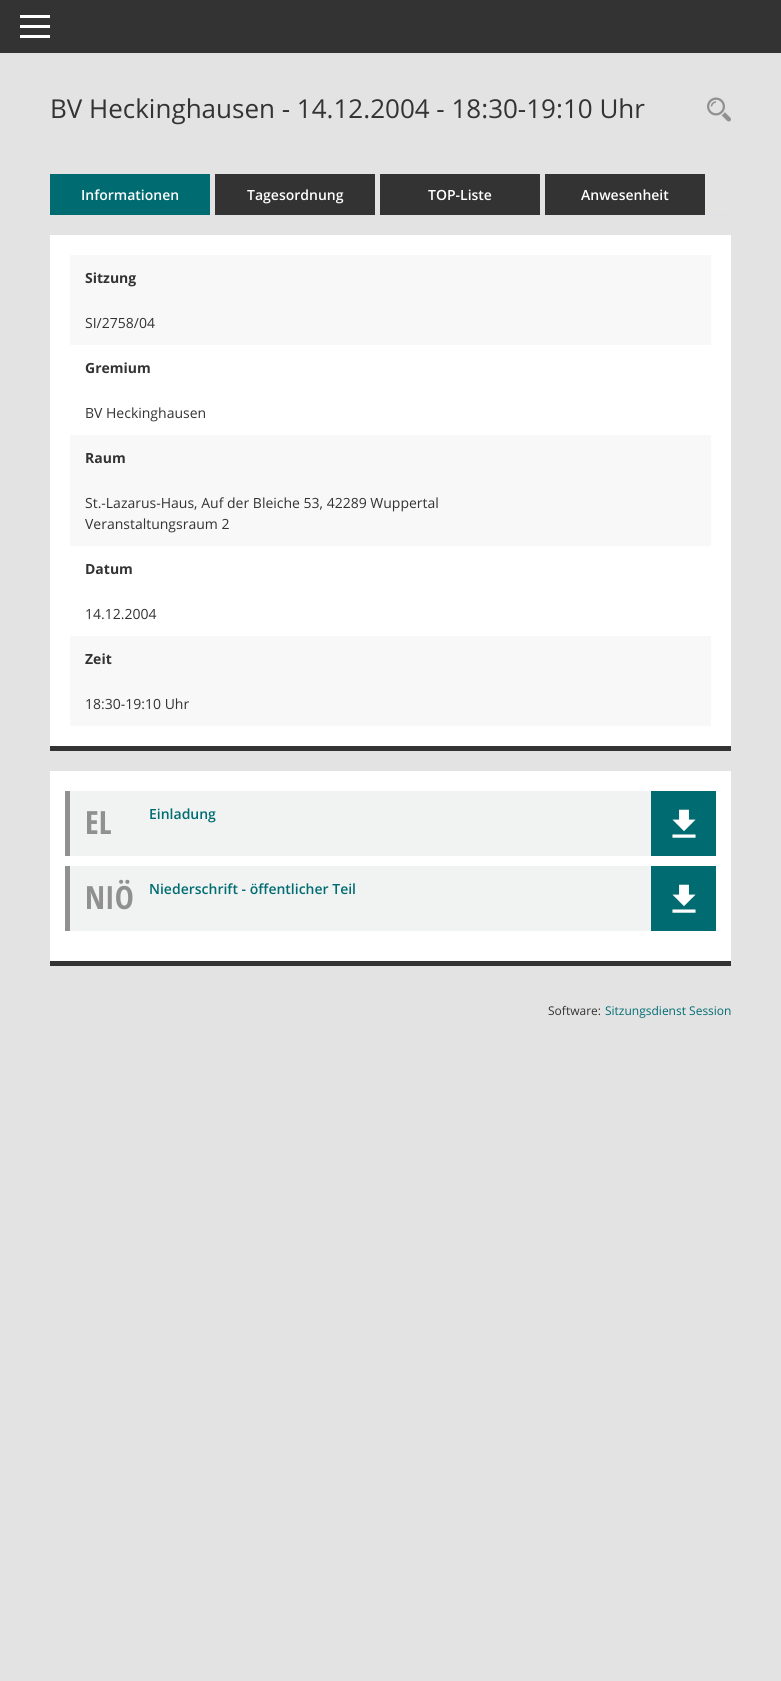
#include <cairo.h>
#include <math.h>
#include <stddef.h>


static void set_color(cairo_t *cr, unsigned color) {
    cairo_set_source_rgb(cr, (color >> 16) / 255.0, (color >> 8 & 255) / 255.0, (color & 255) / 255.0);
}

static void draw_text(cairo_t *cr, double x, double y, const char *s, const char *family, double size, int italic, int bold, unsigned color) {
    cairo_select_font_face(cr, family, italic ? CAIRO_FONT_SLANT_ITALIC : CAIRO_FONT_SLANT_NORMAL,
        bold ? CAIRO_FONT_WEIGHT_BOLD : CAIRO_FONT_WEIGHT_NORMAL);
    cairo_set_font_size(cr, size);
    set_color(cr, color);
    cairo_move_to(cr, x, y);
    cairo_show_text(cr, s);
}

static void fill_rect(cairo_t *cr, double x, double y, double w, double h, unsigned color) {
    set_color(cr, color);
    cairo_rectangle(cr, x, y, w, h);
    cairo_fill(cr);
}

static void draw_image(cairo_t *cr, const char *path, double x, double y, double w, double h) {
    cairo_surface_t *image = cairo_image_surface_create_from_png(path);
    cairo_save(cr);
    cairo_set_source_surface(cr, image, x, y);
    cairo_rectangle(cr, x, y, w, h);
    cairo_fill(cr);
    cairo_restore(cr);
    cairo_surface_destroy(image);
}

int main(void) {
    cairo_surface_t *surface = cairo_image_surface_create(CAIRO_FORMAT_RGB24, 781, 1681);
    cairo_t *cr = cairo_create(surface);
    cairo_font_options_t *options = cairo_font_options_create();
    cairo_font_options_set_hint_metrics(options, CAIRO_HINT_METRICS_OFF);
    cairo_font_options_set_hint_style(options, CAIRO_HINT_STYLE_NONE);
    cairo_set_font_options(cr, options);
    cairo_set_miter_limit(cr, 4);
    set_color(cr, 0xE3E3E3);
    cairo_paint(cr);
    fill_rect(cr, 0, 0, 781, 53, 0x333333);
    fill_rect(cr, 20, 15, 30, 3, 0xFFFFFF);
    fill_rect(cr, 20, 25, 30, 3, 0xFFFFFF);
    fill_rect(cr, 20, 35, 30, 3, 0xFFFFFF);
    draw_text(cr, 50, 118, "BV Heckinghausen - 14.12.2004 - 18:30-19:10 Uhr", "Open Sans", 26, 0, 0, 0x333333);
    draw_image(cr, "assets/img1.png", 707, 97, 24, 25);
    fill_rect(cr, 210, 214, 521, 1, 0xDEE2E6);
    fill_rect(cr, 50, 174, 160, 41, 0x006C72);
    draw_text(cr, 81, 200, "Informationen", "Open Sans SemiBold", 14, 0, 0, 0xFFFFFF);
    fill_rect(cr, 215, 174, 160, 41, 0x333333);
    draw_text(cr, 247, 200, "Tagesordnung", "Open Sans SemiBold", 14, 0, 0, 0xFFFFFF);
    fill_rect(cr, 380, 174, 160, 41, 0x333333);
    draw_text(cr, 428, 200, "TOP-Liste", "Open Sans SemiBold", 14, 0, 0, 0xFFFFFF);
    fill_rect(cr, 545, 174, 160, 41, 0x333333);
    draw_text(cr, 581, 200, "Anwesenheit", "Open Sans SemiBold", 14, 0, 0, 0xFFFFFF);
    fill_rect(cr, 50, 235, 681, 511, 0xFFFFFF);
    fill_rect(cr, 50, 746, 681, 5, 0x333333);
    fill_rect(cr, 70, 255, 641, 90, 0xF8F8F8);
    draw_text(cr, 85, 283, "Sitzung", "Open Sans", 14, 0, 1, 0x333333);
    draw_text(cr, 85, 328, "SI/2758/04", "Open Sans", 14, 0, 0, 0x333333);
    draw_text(cr, 85, 373, "Gremium", "Open Sans", 14, 0, 1, 0x333333);
    draw_text(cr, 85, 418, "BV Heckinghausen", "Open Sans", 14, 0, 0, 0x333333);
    fill_rect(cr, 70, 435, 641, 111, 0xF8F8F8);
    draw_text(cr, 85, 463, "Raum", "Open Sans", 14, 0, 1, 0x333333);
    draw_text(cr, 85, 508, "St.-Lazarus-Haus, Auf der Bleiche 53, 42289 Wuppertal", "Open Sans", 14, 0, 0, 0x333333);
    draw_text(cr, 85, 529, "Veranstaltungsraum 2", "Open Sans", 14, 0, 0, 0x333333);
    draw_text(cr, 85, 574, "Datum", "Open Sans", 14, 0, 1, 0x333333);
    draw_text(cr, 85, 619, "14.12.2004", "Open Sans", 14, 0, 0, 0x333333);
    fill_rect(cr, 70, 636, 641, 90, 0xF8F8F8);
    draw_text(cr, 85, 664, "Zeit", "Open Sans", 14, 0, 1, 0x333333);
    draw_text(cr, 85, 709, "18:30-19:10 Uhr", "Open Sans", 14, 0, 0, 0x333333);
    fill_rect(cr, 50, 771, 681, 190, 0xFFFFFF);
    fill_rect(cr, 50, 961, 681, 5, 0x333333);
    fill_rect(cr, 70, 791, 581, 65, 0xF0F3F2);
    fill_rect(cr, 65, 791, 5, 65, 0x909090);
    draw_text(cr, 85, 834, "EL", "Open Sans Condensed", 32, 0, 1, 0x909090);
    draw_text(cr, 149, 819, "Einladung", "Open Sans SemiBold", 14, 0, 0, 0x006C72);
    fill_rect(cr, 651, 791, 65, 65, 0x006C72);
    draw_image(cr, "assets/img2.png", 672, 809, 24, 29);
    fill_rect(cr, 70, 866, 581, 65, 0xF0F3F2);
    fill_rect(cr, 65, 866, 5, 65, 0x909090);
    draw_text(cr, 85, 909, "NIÖ", "Open Sans Condensed", 32, 0, 1, 0x909090);
    draw_text(cr, 149, 894, "Niederschrift - öffentlicher Teil", "Open Sans SemiBold", 14, 0, 0, 0x006C72);
    fill_rect(cr, 651, 866, 65, 65, 0x006C72);
    draw_image(cr, "assets/img2.png", 672, 884, 24, 29);
    draw_text(cr, 548, 1015, "Software:", "Open Sans", 12, 0, 0, 0x333333);
    draw_text(cr, 605, 1015, "Sitzungsdienst Session", "Open Sans", 12, 0, 0, 0x006C72);
    cairo_surface_write_to_png(surface, "output.png");
    cairo_font_options_destroy(options);
    cairo_destroy(cr);
    cairo_surface_destroy(surface);
    return 0;
}
